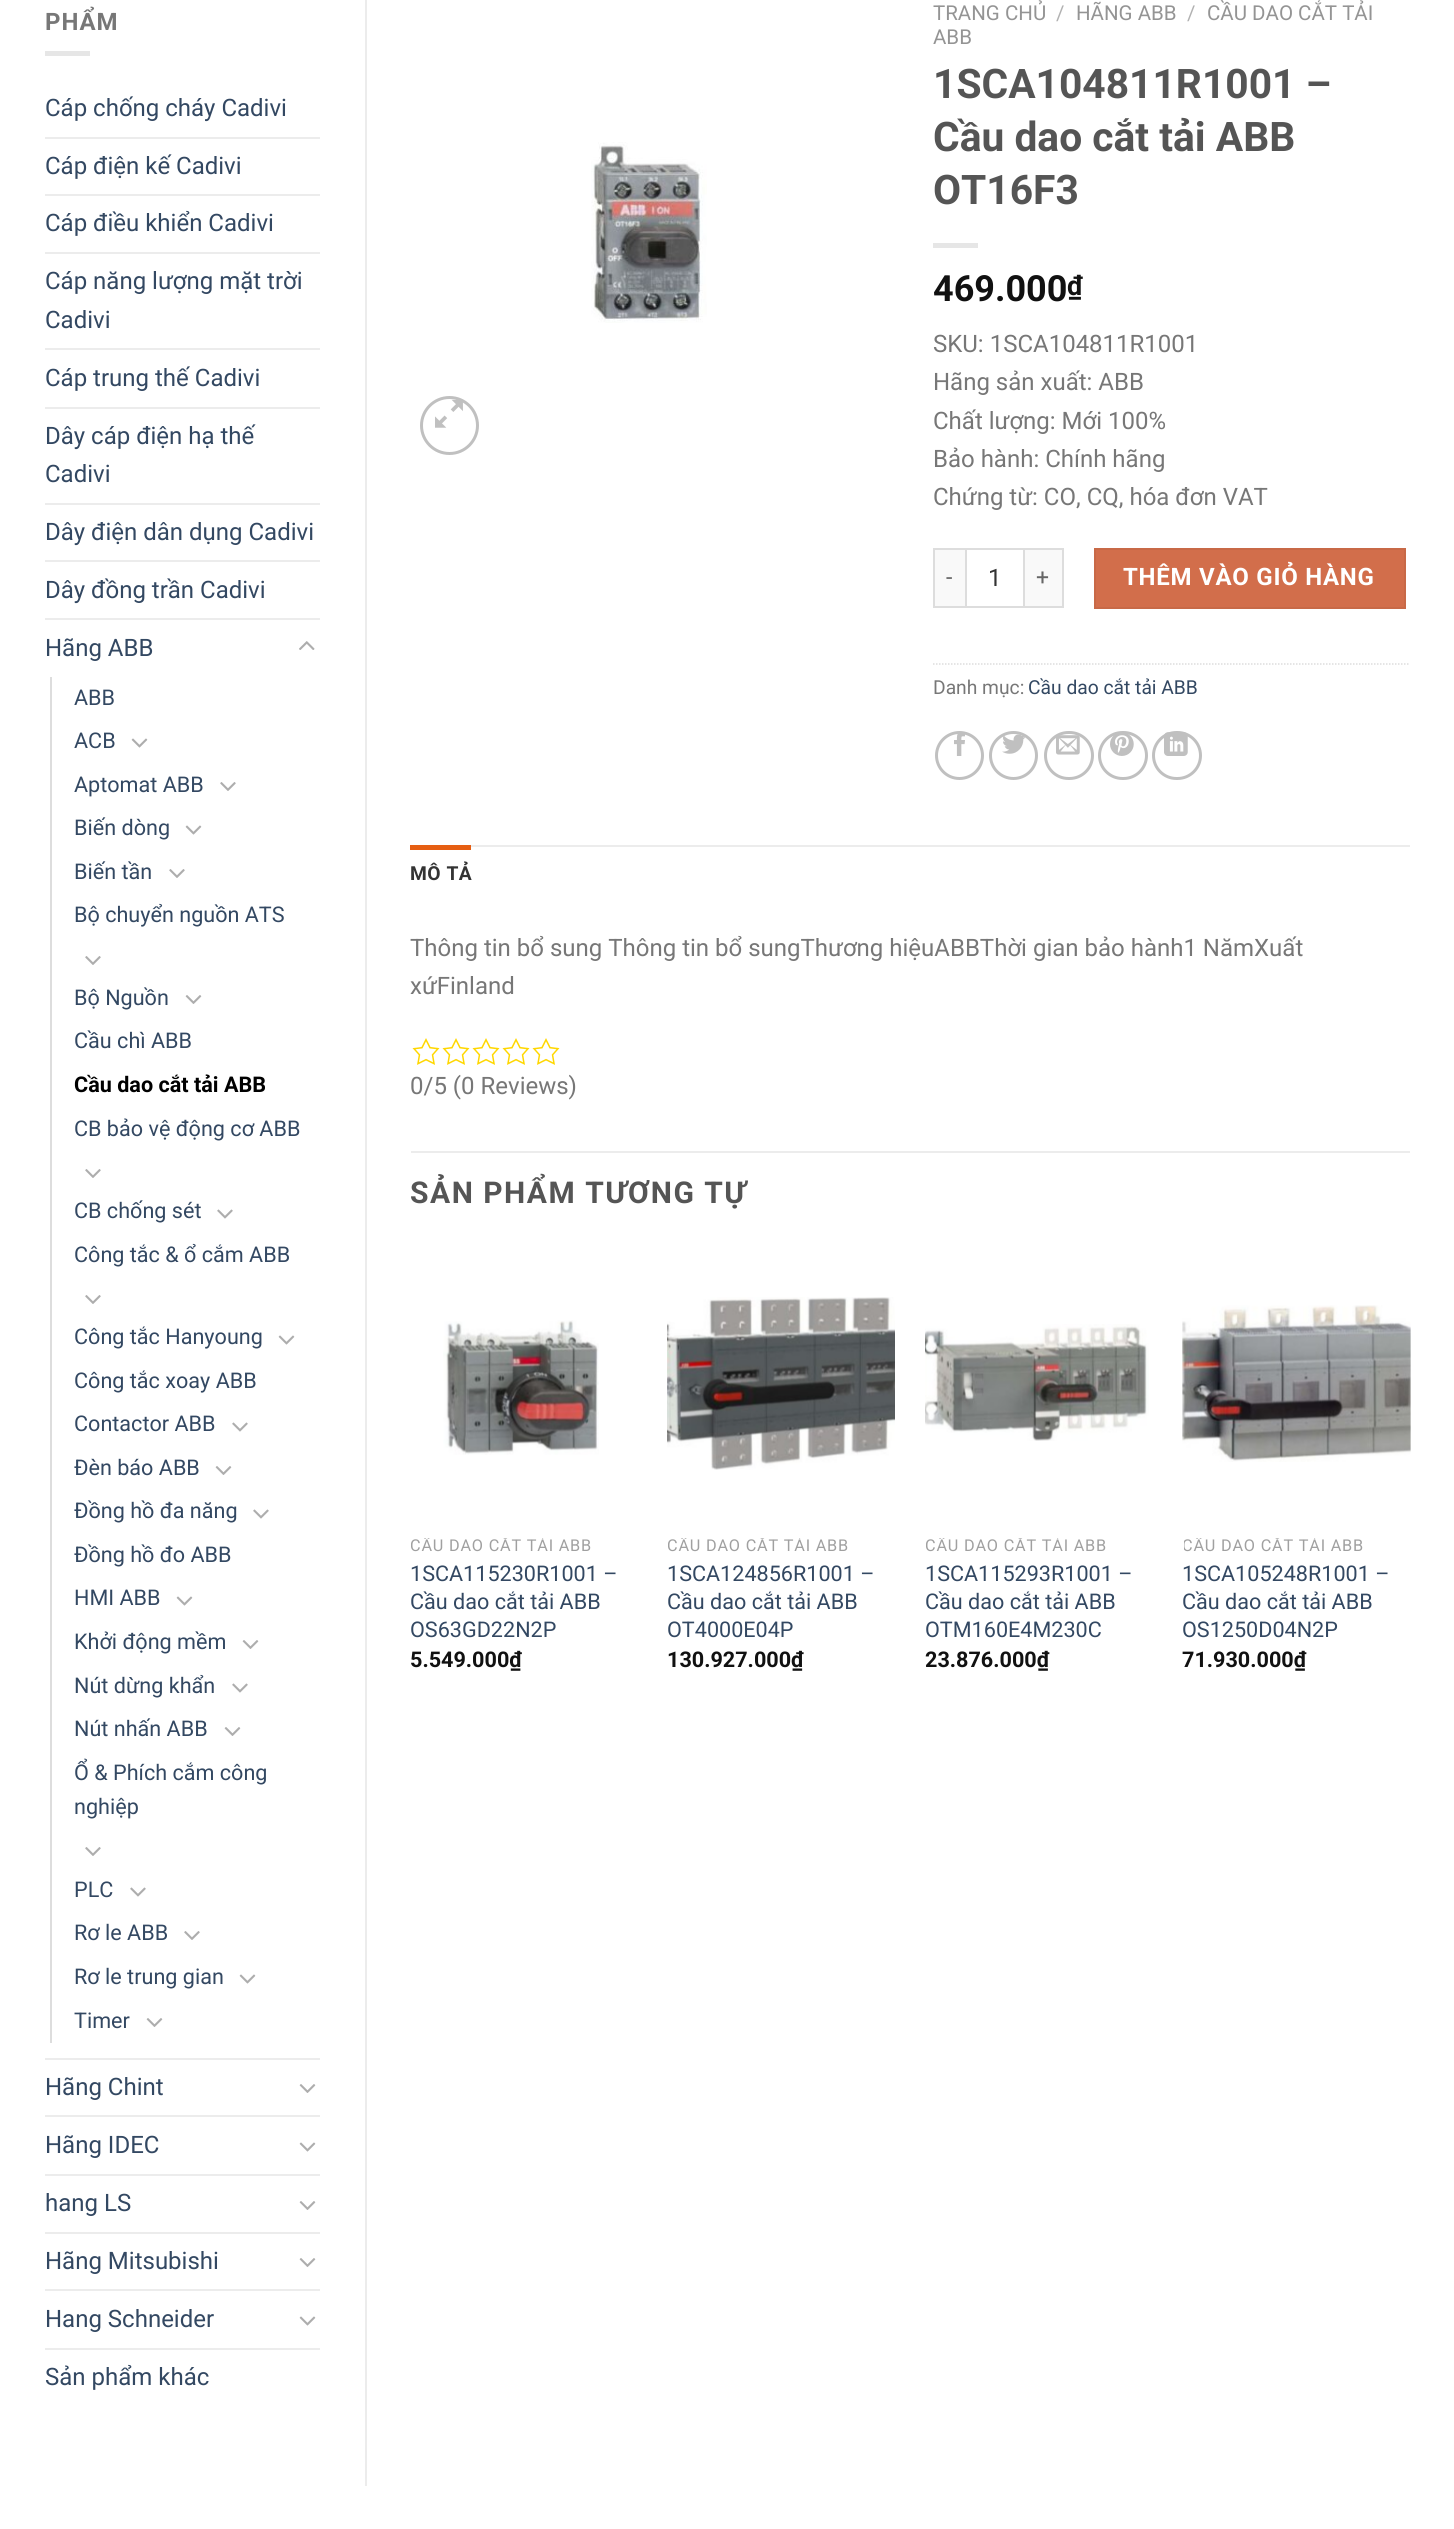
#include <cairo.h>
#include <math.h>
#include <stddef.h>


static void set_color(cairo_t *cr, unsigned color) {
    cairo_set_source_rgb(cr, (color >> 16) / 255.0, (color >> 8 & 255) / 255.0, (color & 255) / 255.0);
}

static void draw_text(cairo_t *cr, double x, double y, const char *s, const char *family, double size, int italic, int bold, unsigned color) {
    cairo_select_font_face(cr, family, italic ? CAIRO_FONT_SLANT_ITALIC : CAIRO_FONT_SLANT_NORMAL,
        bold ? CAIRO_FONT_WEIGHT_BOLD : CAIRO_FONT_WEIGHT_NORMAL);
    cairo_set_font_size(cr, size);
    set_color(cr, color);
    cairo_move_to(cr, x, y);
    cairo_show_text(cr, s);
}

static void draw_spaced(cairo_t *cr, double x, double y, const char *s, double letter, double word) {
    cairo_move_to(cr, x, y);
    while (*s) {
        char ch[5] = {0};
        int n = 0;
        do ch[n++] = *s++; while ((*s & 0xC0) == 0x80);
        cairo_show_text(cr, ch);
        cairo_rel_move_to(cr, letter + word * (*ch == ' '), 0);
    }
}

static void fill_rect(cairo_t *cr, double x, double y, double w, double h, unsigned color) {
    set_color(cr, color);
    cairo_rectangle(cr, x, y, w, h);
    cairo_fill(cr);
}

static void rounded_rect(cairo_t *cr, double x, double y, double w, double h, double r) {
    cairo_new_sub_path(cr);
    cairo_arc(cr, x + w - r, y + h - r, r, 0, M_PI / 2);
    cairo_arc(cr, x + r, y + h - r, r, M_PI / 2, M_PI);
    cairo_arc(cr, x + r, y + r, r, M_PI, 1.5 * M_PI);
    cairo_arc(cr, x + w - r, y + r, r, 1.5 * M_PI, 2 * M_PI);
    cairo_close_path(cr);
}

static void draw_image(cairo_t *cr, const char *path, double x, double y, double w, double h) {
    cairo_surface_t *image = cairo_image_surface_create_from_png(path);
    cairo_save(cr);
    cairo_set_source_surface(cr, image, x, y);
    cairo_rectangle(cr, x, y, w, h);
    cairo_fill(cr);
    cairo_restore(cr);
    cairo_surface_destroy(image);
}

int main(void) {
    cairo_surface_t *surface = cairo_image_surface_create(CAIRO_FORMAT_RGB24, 1454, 2529);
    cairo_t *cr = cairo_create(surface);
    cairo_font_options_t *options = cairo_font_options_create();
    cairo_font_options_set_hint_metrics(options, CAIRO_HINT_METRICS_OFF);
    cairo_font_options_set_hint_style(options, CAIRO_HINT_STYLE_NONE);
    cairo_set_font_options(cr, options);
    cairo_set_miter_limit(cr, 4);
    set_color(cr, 0xFFFFFF);
    cairo_paint(cr);
    cairo_select_font_face(cr, "Roboto", CAIRO_FONT_SLANT_NORMAL, CAIRO_FONT_WEIGHT_BOLD);
    cairo_set_font_size(cr, 24);
    set_color(cr, 0x777777);
    draw_spaced(cr, 45, 30, "PHẨM", 1, 0);
    fill_rect(cr, 45, 51, 45, 5, 0xE6E6E6);
    draw_text(cr, 45, 116, "Cáp chống cháy Cadivi", "Roboto", 24, 0, 0, 0x334862);
    fill_rect(cr, 45, 137, 275, 2, 0xECECEC);
    draw_text(cr, 45, 174, "Cáp điện kế Cadivi", "Roboto", 24, 0, 0, 0x334862);
    fill_rect(cr, 45, 194, 275, 2, 0xECECEC);
    draw_text(cr, 45, 231, "Cáp điều khiển Cadivi", "Roboto", 24, 0, 0, 0x334862);
    fill_rect(cr, 45, 252, 275, 2, 0xECECEC);
    draw_text(cr, 45, 289, "Cáp năng lượng mặt trời", "Roboto", 24, 0, 0, 0x334862);
    draw_text(cr, 45, 328, "Cadivi", "Roboto", 24, 0, 0, 0x334862);
    fill_rect(cr, 45, 348, 275, 2, 0xECECEC);
    draw_text(cr, 45, 386, "Cáp trung thế Cadivi", "Roboto", 24, 0, 0, 0x334862);
    fill_rect(cr, 45, 407, 275, 2, 0xECECEC);
    draw_text(cr, 45, 444, "Dây cáp điện hạ thế", "Roboto", 24, 0, 0, 0x334862);
    draw_text(cr, 45, 482, "Cadivi", "Roboto", 24, 0, 0, 0x334862);
    fill_rect(cr, 45, 503, 275, 2, 0xECECEC);
    draw_text(cr, 45, 540, "Dây điện dân dụng Cadivi", "Roboto", 24, 0, 0, 0x334862);
    fill_rect(cr, 45, 560, 275, 2, 0xECECEC);
    draw_text(cr, 45, 598, "Dây đồng trần Cadivi", "Roboto", 24, 0, 0, 0x334862);
    fill_rect(cr, 45, 618, 275, 2, 0xECECEC);
    draw_text(cr, 45, 656, "Hãng ABB", "Roboto", 24, 0, 0, 0x334862);
    draw_image(cr, "assets/img1.png", 299, 641, 16, 9);
    fill_rect(cr, 50, 677, 2, 1366, 0xDDDDDD);
    draw_text(cr, 74, 705, "ABB", "Roboto", 21.6, 0, 0, 0x334862);
    draw_text(cr, 74, 748, "ACB", "Roboto", 21.6, 0, 0, 0x334862);
    draw_image(cr, "assets/img2.png", 131, 738, 17, 10);
    draw_text(cr, 74, 792, "Aptomat ABB", "Roboto", 21.6, 0, 0, 0x334862);
    draw_image(cr, "assets/img3.png", 220, 782, 16, 9);
    draw_text(cr, 74, 835, "Biến dòng", "Roboto", 21.6, 0, 0, 0x334862);
    draw_image(cr, "assets/img2.png", 185, 825, 17, 10);
    draw_text(cr, 74, 879, "Biến tần", "Roboto", 21.6, 0, 0, 0x334862);
    draw_image(cr, "assets/img3.png", 169, 869, 16, 9);
    draw_text(cr, 74, 922, "Bộ chuyển nguồn ATS", "Roboto", 21.6, 0, 0, 0x334862);
    draw_image(cr, "assets/img3.png", 85, 956, 16, 9);
    draw_text(cr, 74, 1005, "Bộ Nguồn", "Roboto", 21.6, 0, 0, 0x334862);
    draw_image(cr, "assets/img4.png", 185, 995, 17, 9);
    draw_text(cr, 74, 1048, "Cầu chì ABB", "Roboto", 21.6, 0, 0, 0x334862);
    draw_text(cr, 74, 1092, "Cầu dao cắt tải ABB", "Roboto", 21.6, 0, 1, 0x000000);
    draw_text(cr, 74, 1136, "CB bảo vệ động cơ ABB", "Roboto", 21.6, 0, 0, 0x334862);
    draw_image(cr, "assets/img3.png", 85, 1169, 16, 9);
    draw_text(cr, 74, 1218, "CB chống sét", "Roboto", 21.6, 0, 0, 0x334862);
    draw_image(cr, "assets/img5.png", 217, 1209, 16, 10);
    draw_text(cr, 74, 1262, "Công tắc & ổ cắm ABB", "Roboto", 21.6, 0, 0, 0x334862);
    draw_image(cr, "assets/img3.png", 85, 1295, 16, 9);
    draw_text(cr, 74, 1344, "Công tắc Hanyoung", "Roboto", 21.6, 0, 0, 0x334862);
    draw_image(cr, "assets/img2.png", 278, 1335, 17, 10);
    draw_text(cr, 74, 1388, "Công tắc xoay ABB", "Roboto", 21.6, 0, 0, 0x334862);
    draw_text(cr, 74, 1431, "Contactor ABB", "Roboto", 21.6, 0, 0, 0x334862);
    draw_image(cr, "assets/img5.png", 232, 1422, 16, 10);
    draw_text(cr, 74, 1475, "Đèn báo ABB", "Roboto", 21.6, 0, 0, 0x334862);
    draw_image(cr, "assets/img4.png", 215, 1466, 17, 9);
    draw_text(cr, 74, 1518, "Đồng hồ đa năng", "Roboto", 21.6, 0, 0, 0x334862);
    draw_image(cr, "assets/img5.png", 253, 1509, 16, 10);
    draw_text(cr, 74, 1562, "Đồng hồ đo ABB", "Roboto", 21.6, 0, 0, 0x334862);
    draw_text(cr, 74, 1605, "HMI ABB", "Roboto", 21.6, 0, 0, 0x334862);
    draw_image(cr, "assets/img2.png", 176, 1596, 17, 10);
    draw_text(cr, 74, 1649, "Khởi động mềm", "Roboto", 21.6, 0, 0, 0x334862);
    draw_image(cr, "assets/img4.png", 242, 1640, 17, 9);
    draw_text(cr, 74, 1693, "Nút dừng khẩn", "Roboto", 21.6, 0, 0, 0x334862);
    draw_image(cr, "assets/img5.png", 232, 1683, 16, 10);
    draw_text(cr, 74, 1736, "Nút nhấn ABB", "Roboto", 21.6, 0, 0, 0x334862);
    draw_image(cr, "assets/img4.png", 224, 1727, 17, 9);
    draw_text(cr, 74, 1780, "Ổ & Phích cắm công", "Roboto", 21.6, 0, 0, 0x334862);
    draw_text(cr, 74, 1814, "nghiệp", "Roboto", 21.6, 0, 0, 0x334862);
    draw_image(cr, "assets/img3.png", 85, 1847, 16, 9);
    draw_text(cr, 74, 1897, "PLC", "Roboto", 21.6, 0, 0, 0x334862);
    draw_image(cr, "assets/img5.png", 130, 1887, 16, 10);
    draw_text(cr, 74, 1940, "Rơ le ABB", "Roboto", 21.6, 0, 0, 0x334862);
    draw_image(cr, "assets/img3.png", 184, 1931, 16, 9);
    draw_text(cr, 74, 1984, "Rơ le trung gian", "Roboto", 21.6, 0, 0, 0x334862);
    draw_image(cr, "assets/img2.png", 239, 1974, 17, 10);
    draw_text(cr, 74, 2028, "Timer", "Roboto", 21.6, 0, 0, 0x334862);
    draw_image(cr, "assets/img4.png", 146, 2018, 17, 9);
    fill_rect(cr, 45, 2058, 275, 2, 0xECECEC);
    draw_text(cr, 45, 2095, "Hãng Chint", "Roboto", 24, 0, 0, 0x334862);
    draw_image(cr, "assets/img4.png", 299, 2084, 17, 9);
    fill_rect(cr, 45, 2115, 275, 2, 0xECECEC);
    draw_text(cr, 45, 2153, "Hãng IDEC", "Roboto", 24, 0, 0, 0x334862);
    draw_image(cr, "assets/img2.png", 299, 2142, 17, 10);
    fill_rect(cr, 45, 2174, 275, 2, 0xECECEC);
    draw_text(cr, 45, 2211, "hang LS", "Roboto", 24, 0, 0, 0x334862);
    draw_image(cr, "assets/img4.png", 299, 2201, 17, 9);
    fill_rect(cr, 45, 2232, 275, 2, 0xECECEC);
    draw_text(cr, 45, 2269, "Hãng Mitsubishi", "Roboto", 24, 0, 0, 0x334862);
    draw_image(cr, "assets/img4.png", 299, 2258, 17, 9);
    fill_rect(cr, 45, 2289, 275, 2, 0xECECEC);
    draw_text(cr, 45, 2327, "Hang Schneider", "Roboto", 24, 0, 0, 0x334862);
    draw_image(cr, "assets/img2.png", 299, 2316, 17, 10);
    fill_rect(cr, 45, 2348, 275, 2, 0xECECEC);
    draw_text(cr, 45, 2385, "Sản phẩm khác", "Roboto", 24, 0, 0, 0x334862);
    fill_rect(cr, 365, 0, 2, 2486, 0xECECEC);
    draw_image(cr, "assets/img6.png", 591, 142, 116, 181);
    cairo_arc(cr, 449.5, 425.5, 28, 0, 2 * M_PI);
    set_color(cr, 0xC0C0C0);
    cairo_set_line_width(cr, 3);
    cairo_stroke(cr);
    draw_image(cr, "assets/img7.png", 435, 399, 28, 29);
    draw_text(cr, 933, 20, "TRANG CHỦ", "Roboto", 20.5, 0, 0, 0x949494);
    draw_text(cr, 1056, 20, "/", "Roboto", 20.5, 0, 0, 0xB2B2B2);
    draw_text(cr, 1076, 20, "HÃNG ABB", "Roboto", 20.5, 0, 0, 0x949494);
    draw_text(cr, 1187, 20, "/", "Roboto", 20.5, 0, 0, 0xB2B2B2);
    draw_text(cr, 1207, 20, "CẦU DAO CẮT TẢI", "Roboto", 20.5, 0, 0, 0x949494);
    draw_text(cr, 933, 44, "ABB", "Roboto", 20.5, 0, 0, 0x949494);
    draw_text(cr, 933, 98, "1SCA104811R1001 –", "Roboto", 40.75, 0, 1, 0x555555);
    draw_text(cr, 933, 151, "Cầu dao cắt tải ABB", "Roboto", 40.75, 0, 1, 0x555555);
    draw_text(cr, 933, 204, "OT16F3", "Roboto", 40.75, 0, 1, 0x555555);
    fill_rect(cr, 933, 243, 45, 5, 0xE6E6E6);
    draw_text(cr, 933, 301, "469.000", "Roboto", 36, 0, 1, 0x111111);
    draw_text(cr, 1067, 295, "₫", "Roboto", 27, 0, 1, 0x111111);
    draw_text(cr, 933, 352, "SKU: 1SCA104811R1001", "Roboto", 24, 0, 0, 0x777777);
    draw_text(cr, 933, 390, "Hãng sản xuất: ABB", "Roboto", 24, 0, 0, 0x777777);
    draw_text(cr, 933, 429, "Chất lượng: Mới 100%", "Roboto", 24, 0, 0, 0x777777);
    draw_text(cr, 933, 467, "Bảo hành: Chính hãng", "Roboto", 24, 0, 0, 0x777777);
    draw_text(cr, 933, 505, "Chứng từ: CO, CQ, hóa đơn VAT", "Roboto", 24, 0, 0, 0x777777);
    fill_rect(cr, 935, 550, 30, 56, 0xF9F9F9);
    fill_rect(cr, 933, 548, 32, 2, 0xDDDDDD);
    fill_rect(cr, 933, 606, 32, 2, 0xDDDDDD);
    fill_rect(cr, 933, 548, 2, 60, 0xDDDDDD);
    cairo_set_font_size(cr, 23);
    set_color(cr, 0x666666);
    draw_spaced(cr, 946, 585, "-", 1, 0);
    cairo_rectangle(cr, 966, 549, 58, 58);
    set_color(cr, 0xDDDDDD);
    cairo_set_line_width(cr, 2);
    cairo_stroke(cr);
    draw_text(cr, 988, 586, "1", "Roboto", 24, 0, 0, 0x333333);
    fill_rect(cr, 1025, 550, 37, 56, 0xF9F9F9);
    fill_rect(cr, 1025, 548, 39, 2, 0xDDDDDD);
    fill_rect(cr, 1062, 548, 2, 60, 0xDDDDDD);
    fill_rect(cr, 1025, 606, 39, 2, 0xDDDDDD);
    cairo_set_font_size(cr, 23);
    set_color(cr, 0x666666);
    draw_spaced(cr, 1036, 585, "+", 1, 0);
    set_color(cr, 0xD26E4B);
    cairo_rectangle(cr, 1095, 549, 310, 59);
    cairo_fill_preserve(cr);
    set_color(cr, 0xC86947);
    cairo_stroke(cr);
    cairo_select_font_face(cr, "Roboto", CAIRO_FONT_SLANT_NORMAL, CAIRO_FONT_WEIGHT_BOLD);
    cairo_set_font_size(cr, 24);
    set_color(cr, 0xFFFFFF);
    draw_spaced(cr, 1123, 585, "THÊM VÀO GIỎ HÀNG", 0.75, 0);
    cairo_new_path(cr);
    cairo_move_to(cr, 933, 664);
    cairo_line_to(cr, 1410, 664);
    set_color(cr, 0xDDDDDD);
    cairo_set_line_width(cr, 1.5);
    cairo_set_dash(cr, (double[]){1.5, 1.5}, 2, 0);
    cairo_stroke(cr);
    draw_text(cr, 933, 694, "Danh mục:", "Roboto", 19.25, 0, 0, 0x777777);
    draw_text(cr, 1028, 694, "Cầu dao cắt tải ABB", "Roboto", 19.25, 0, 0, 0x334862);
    cairo_new_path(cr);
    cairo_arc(cr, 959.5, 755.5, 23, 0, 2 * M_PI);
    set_color(cr, 0xC0C0C0);
    cairo_set_line_width(cr, 3);
    cairo_set_dash(cr, NULL, 0, 0);
    cairo_stroke(cr);
    draw_image(cr, "assets/img8.png", 954, 734, 11, 22);
    cairo_arc(cr, 1013.5, 755.5, 23, 0, 2 * M_PI);
    cairo_stroke(cr);
    draw_image(cr, "assets/img9.png", 1002, 734, 23, 20);
    rounded_rect(cr, 1045.5, 732.5, 47, 46, 23);
    cairo_stroke(cr);
    draw_image(cr, "assets/img10.png", 1056, 735, 24, 20);
    rounded_rect(cr, 1099.5, 732.5, 47, 46, 23);
    cairo_stroke(cr);
    draw_image(cr, "assets/img11.png", 1110, 734, 24, 22);
    rounded_rect(cr, 1153.5, 732.5, 47, 46, 23);
    cairo_stroke(cr);
    draw_image(cr, "assets/img12.png", 1164, 732, 24, 24);
    fill_rect(cr, 471, 845, 939, 2, 0xECECEC);
    fill_rect(cr, 410, 845, 61, 5, 0xE65E12);
    cairo_select_font_face(cr, "Roboto", CAIRO_FONT_SLANT_NORMAL, CAIRO_FONT_WEIGHT_BOLD);
    set_color(cr, 0x333333);
    draw_spaced(cr, 410, 880, "MÔ TẢ", 0.5, 0);
    draw_text(cr, 410, 956, "Thông tin bổ sung Thông tin bổ sungThương hiệuABBThời gian bảo hành1 NămXuất", "Roboto", 24, 0, 0, 0x777777);
    draw_text(cr, 410, 994, "xứFinland", "Roboto", 24, 0, 0, 0x777777);
    draw_image(cr, "assets/img13.png", 412, 1038, 28, 27);
    draw_image(cr, "assets/img13.png", 442, 1038, 28, 27);
    draw_image(cr, "assets/img13.png", 472, 1038, 28, 27);
    draw_image(cr, "assets/img13.png", 502, 1038, 28, 27);
    draw_image(cr, "assets/img13.png", 532, 1038, 28, 27);
    draw_text(cr, 410, 1094, "0/5 (0 Reviews)", "Roboto", 24, 0, 0, 0x777777);
    fill_rect(cr, 411, 1151, 999, 2, 0xECECEC);
    cairo_select_font_face(cr, "Roboto", CAIRO_FONT_SLANT_NORMAL, CAIRO_FONT_WEIGHT_BOLD);
    cairo_set_font_size(cr, 30);
    set_color(cr, 0x555555);
    draw_spaced(cr, 410, 1203, "SẢN PHẨM TƯƠNG TỰ", 1.5, 0);
    draw_image(cr, "assets/img14.png", 443, 1320, 156, 135);
    cairo_save(cr);
    cairo_rectangle(cr, 411, 1538, 228, 19);
    cairo_clip(cr);
    cairo_select_font_face(cr, "Roboto", CAIRO_FONT_SLANT_NORMAL, CAIRO_FONT_WEIGHT_NORMAL);
    cairo_set_font_size(cr, 16.25);
    set_color(cr, 0xA0A0A0);
    draw_spaced(cr, 410, 1551, "CẦU DAO CẮT TẢI ABB", 0.8, 0);
    cairo_restore(cr);
    draw_text(cr, 410, 1581, "1SCA115230R1001 –", "Roboto", 21.6, 0, 0, 0x334862);
    draw_text(cr, 410, 1609, "Cầu dao cắt tải ABB", "Roboto", 21.6, 0, 0, 0x334862);
    draw_text(cr, 410, 1637, "OS63GD22N2P", "Roboto", 21.6, 0, 0, 0x334862);
    draw_text(cr, 410, 1667, "5.549.000₫", "Roboto", 21.6, 0, 1, 0x111111);
    draw_image(cr, "assets/img15.png", 667, 1297, 228, 173);
    cairo_save(cr);
    cairo_rectangle(cr, 668, 1538, 228, 19);
    cairo_clip(cr);
    cairo_select_font_face(cr, "Roboto", CAIRO_FONT_SLANT_NORMAL, CAIRO_FONT_WEIGHT_NORMAL);
    cairo_set_font_size(cr, 16.25);
    set_color(cr, 0xA0A0A0);
    draw_spaced(cr, 667, 1551, "CẦU DAO CẮT TẢI ABB", 0.8, 0);
    cairo_restore(cr);
    draw_text(cr, 667, 1581, "1SCA124856R1001 –", "Roboto", 21.6, 0, 0, 0x334862);
    draw_text(cr, 667, 1609, "Cầu dao cắt tải ABB", "Roboto", 21.6, 0, 0, 0x334862);
    draw_text(cr, 667, 1637, "OT4000E04P", "Roboto", 21.6, 0, 0, 0x334862);
    draw_text(cr, 667, 1667, "130.927.000₫", "Roboto", 21.6, 0, 1, 0x111111);
    draw_image(cr, "assets/img16.png", 925, 1324, 224, 117);
    cairo_save(cr);
    cairo_rectangle(cr, 926, 1538, 228, 19);
    cairo_clip(cr);
    cairo_select_font_face(cr, "Roboto", CAIRO_FONT_SLANT_NORMAL, CAIRO_FONT_WEIGHT_NORMAL);
    cairo_set_font_size(cr, 16.25);
    set_color(cr, 0xA0A0A0);
    draw_spaced(cr, 925, 1551, "CẦU DAO CẮT TẢI ABB", 0.8, 0);
    cairo_restore(cr);
    draw_text(cr, 925, 1581, "1SCA115293R1001 –", "Roboto", 21.6, 0, 0, 0x334862);
    draw_text(cr, 925, 1609, "Cầu dao cắt tải ABB", "Roboto", 21.6, 0, 0, 0x334862);
    draw_text(cr, 925, 1637, "OTM160E4M230C", "Roboto", 21.6, 0, 0, 0x334862);
    draw_text(cr, 925, 1667, "23.876.000₫", "Roboto", 21.6, 0, 1, 0x111111);
    draw_image(cr, "assets/img17.png", 1182, 1305, 229, 157);
    cairo_save(cr);
    cairo_rectangle(cr, 1184, 1538, 228, 19);
    cairo_clip(cr);
    cairo_select_font_face(cr, "Roboto", CAIRO_FONT_SLANT_NORMAL, CAIRO_FONT_WEIGHT_NORMAL);
    cairo_set_font_size(cr, 16.25);
    set_color(cr, 0xA0A0A0);
    draw_spaced(cr, 1182, 1551, "CẦU DAO CẮT TẢI ABB", 0.8, 0);
    cairo_restore(cr);
    draw_text(cr, 1182, 1581, "1SCA105248R1001 –", "Roboto", 21.6, 0, 0, 0x334862);
    draw_text(cr, 1182, 1609, "Cầu dao cắt tải ABB", "Roboto", 21.6, 0, 0, 0x334862);
    draw_text(cr, 1182, 1637, "OS1250D04N2P", "Roboto", 21.6, 0, 0, 0x334862);
    draw_text(cr, 1182, 1667, "71.930.000₫", "Roboto", 21.6, 0, 1, 0x111111);
    cairo_surface_write_to_png(surface, "output.png");
    cairo_font_options_destroy(options);
    cairo_destroy(cr);
    cairo_surface_destroy(surface);
    return 0;
}
